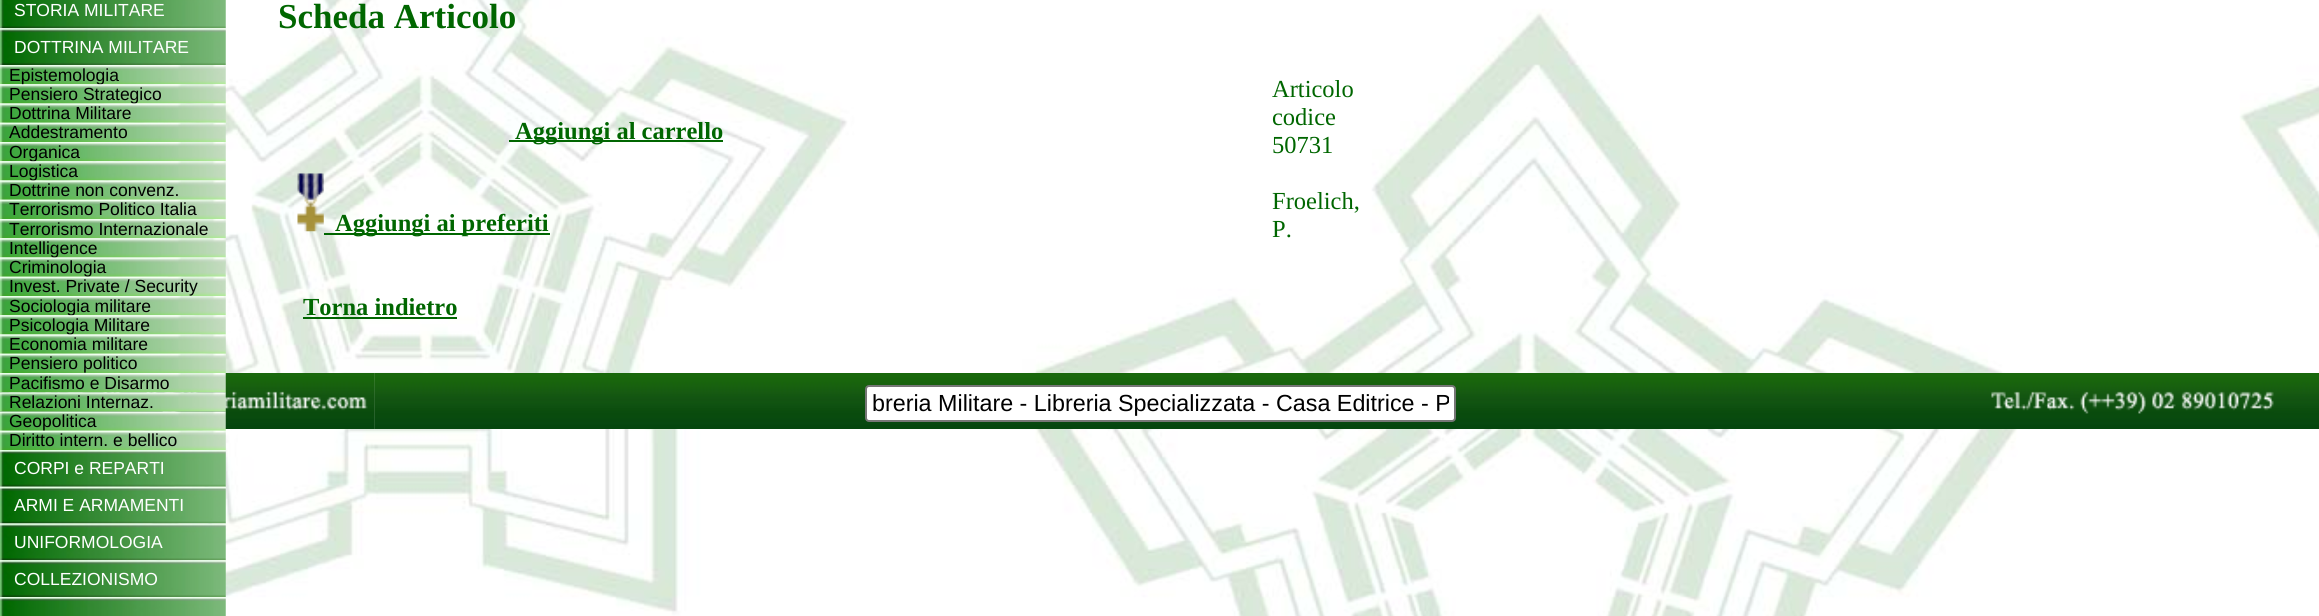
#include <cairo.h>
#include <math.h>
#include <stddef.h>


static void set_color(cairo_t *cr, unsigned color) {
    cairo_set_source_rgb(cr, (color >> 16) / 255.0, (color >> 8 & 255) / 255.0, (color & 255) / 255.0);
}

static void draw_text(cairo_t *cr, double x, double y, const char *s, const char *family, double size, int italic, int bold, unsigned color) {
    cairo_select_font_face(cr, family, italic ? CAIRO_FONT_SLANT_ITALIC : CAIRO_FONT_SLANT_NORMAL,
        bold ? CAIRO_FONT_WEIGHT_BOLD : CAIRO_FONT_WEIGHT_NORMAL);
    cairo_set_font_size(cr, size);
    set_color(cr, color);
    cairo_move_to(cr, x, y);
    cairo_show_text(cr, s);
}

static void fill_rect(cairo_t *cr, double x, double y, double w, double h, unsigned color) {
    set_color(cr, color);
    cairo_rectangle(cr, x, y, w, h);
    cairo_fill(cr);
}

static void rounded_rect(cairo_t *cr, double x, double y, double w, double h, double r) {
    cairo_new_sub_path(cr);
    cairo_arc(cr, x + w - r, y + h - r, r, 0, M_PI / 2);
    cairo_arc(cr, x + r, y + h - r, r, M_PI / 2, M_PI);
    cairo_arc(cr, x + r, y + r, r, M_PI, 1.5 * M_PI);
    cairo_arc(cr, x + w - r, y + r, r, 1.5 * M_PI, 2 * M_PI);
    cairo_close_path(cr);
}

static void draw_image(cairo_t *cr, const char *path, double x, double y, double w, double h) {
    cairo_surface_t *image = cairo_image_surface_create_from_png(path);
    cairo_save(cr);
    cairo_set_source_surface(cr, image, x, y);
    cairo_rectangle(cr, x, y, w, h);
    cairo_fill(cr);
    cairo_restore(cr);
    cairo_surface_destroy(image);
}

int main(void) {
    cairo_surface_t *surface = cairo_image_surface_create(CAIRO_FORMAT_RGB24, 2319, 616);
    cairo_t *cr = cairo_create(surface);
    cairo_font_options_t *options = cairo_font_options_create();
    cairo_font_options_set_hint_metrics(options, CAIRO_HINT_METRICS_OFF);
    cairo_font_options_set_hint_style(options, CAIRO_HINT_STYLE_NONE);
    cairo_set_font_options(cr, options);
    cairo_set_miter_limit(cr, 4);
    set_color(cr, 0xFFFFFF);
    cairo_paint(cr);
    draw_image(cr, "assets/img1.png", 0, 0, 2319, 616);
    draw_image(cr, "assets/img2.png", 0, 0, 226, 29);
    draw_text(cr, 14, 16, "STORIA MILITARE", "Liberation Sans", 17.5, 0, 0, 0xFFFFFF);
    draw_image(cr, "assets/img3.png", 0, 28, 226, 37);
    draw_text(cr, 14, 53, "DOTTRINA MILITARE", "Liberation Sans", 17.5, 0, 0, 0xFFFFFF);
    draw_image(cr, "assets/img4.png", 0, 65, 226, 20);
    draw_text(cr, 9, 81, "Epistemologia", "Liberation Sans", 17.5, 0, 0, 0x000000);
    draw_image(cr, "assets/img5.png", 0, 84, 226, 20);
    draw_text(cr, 9, 100, "Pensiero Strategico", "Liberation Sans", 17.5, 0, 0, 0x000000);
    draw_image(cr, "assets/img6.png", 0, 103, 226, 20);
    draw_text(cr, 9, 119, "Dottrina Militare", "Liberation Sans", 17.5, 0, 0, 0x000000);
    draw_image(cr, "assets/img7.png", 0, 122, 226, 20);
    draw_text(cr, 9, 138, "Addestramento", "Liberation Sans", 17.5, 0, 0, 0x000000);
    draw_image(cr, "assets/img8.png", 0, 142, 226, 20);
    draw_text(cr, 9, 158, "Organica", "Liberation Sans", 17.5, 0, 0, 0x000000);
    draw_image(cr, "assets/img9.png", 0, 161, 226, 20);
    draw_text(cr, 9, 177, "Logistica", "Liberation Sans", 17.5, 0, 0, 0x000000);
    draw_image(cr, "assets/img10.png", 0, 180, 226, 20);
    draw_text(cr, 9, 196, "Dottrine non convenz.", "Liberation Sans", 17.5, 0, 0, 0x000000);
    draw_image(cr, "assets/img11.png", 0, 199, 226, 20);
    draw_text(cr, 9, 215, "Terrorismo Politico Italia", "Liberation Sans", 17.5, 0, 0, 0x000000);
    draw_image(cr, "assets/img12.png", 0, 219, 226, 20);
    draw_text(cr, 9, 235, "Terrorismo Internazionale", "Liberation Sans", 17.5, 0, 0, 0x000000);
    draw_image(cr, "assets/img13.png", 0, 238, 226, 20);
    draw_text(cr, 9, 254, "Intelligence", "Liberation Sans", 17.5, 0, 0, 0x000000);
    draw_image(cr, "assets/img14.png", 0, 257, 226, 20);
    draw_text(cr, 9, 273, "Criminologia", "Liberation Sans", 17.5, 0, 0, 0x000000);
    draw_image(cr, "assets/img15.png", 0, 276, 226, 20);
    draw_text(cr, 9, 292, "Invest. Private / Security", "Liberation Sans", 17.5, 0, 0, 0x000000);
    draw_image(cr, "assets/img16.png", 0, 296, 226, 20);
    draw_text(cr, 9, 312, "Sociologia militare", "Liberation Sans", 17.5, 0, 0, 0x000000);
    draw_image(cr, "assets/img17.png", 0, 315, 226, 20);
    draw_text(cr, 9, 331, "Psicologia Militare", "Liberation Sans", 17.5, 0, 0, 0x000000);
    draw_image(cr, "assets/img18.png", 0, 334, 226, 20);
    draw_text(cr, 9, 350, "Economia militare", "Liberation Sans", 17.5, 0, 0, 0x000000);
    draw_image(cr, "assets/img19.png", 0, 353, 226, 20);
    draw_text(cr, 9, 369, "Pensiero politico", "Liberation Sans", 17.5, 0, 0, 0x000000);
    draw_image(cr, "assets/img30.png", 0, 373, 375, 56);
    draw_image(cr, "assets/img32.png", 374, 373, 1572, 56);
    draw_image(cr, "assets/img31.png", 8, 373, 367, 56);
    draw_image(cr, "assets/img20.png", 0, 373, 226, 20);
    draw_text(cr, 9, 389, "Pacifismo e Disarmo", "Liberation Sans", 17.5, 0, 0, 0x000000);
    draw_image(cr, "assets/img21.png", 0, 392, 226, 20);
    draw_text(cr, 9, 408, "Relazioni Internaz.", "Liberation Sans", 17.5, 0, 0, 0x000000);
    draw_image(cr, "assets/img22.png", 0, 411, 226, 20);
    draw_text(cr, 9, 427, "Geopolitica", "Liberation Sans", 17.5, 0, 0, 0x000000);
    draw_image(cr, "assets/img23.png", 0, 430, 226, 20);
    draw_text(cr, 9, 446, "Diritto intern. e bellico", "Liberation Sans", 17.5, 0, 0, 0x000000);
    draw_image(cr, "assets/img24.png", 0, 450, 226, 37);
    draw_text(cr, 14, 474, "CORPI e REPARTI", "Liberation Sans", 17.5, 0, 0, 0xFFFFFF);
    draw_image(cr, "assets/img25.png", 0, 486, 226, 38);
    draw_text(cr, 14, 511, "ARMI E ARMAMENTI", "Liberation Sans", 17.5, 0, 0, 0xFFFFFF);
    draw_image(cr, "assets/img26.png", 0, 523, 226, 38);
    draw_text(cr, 14, 548, "UNIFORMOLOGIA", "Liberation Sans", 17.5, 0, 0, 0xFFFFFF);
    draw_image(cr, "assets/img27.png", 0, 560, 226, 37);
    draw_text(cr, 14, 585, "COLLEZIONISMO", "Liberation Sans", 17.5, 0, 0, 0xFFFFFF);
    draw_image(cr, "assets/img28.png", 0, 597, 226, 19);
    draw_text(cr, 278, 28, "Scheda Articolo", "Liberation Serif", 35, 0, 1, 0x006600);
    draw_text(cr, 1272, 97, "Articolo", "Liberation Serif", 24.5, 0, 0, 0x006600);
    draw_text(cr, 1272, 125, "codice", "Liberation Serif", 24.5, 0, 0, 0x006600);
    fill_rect(cr, 509, 140, 214, 2, 0x006600);
    draw_text(cr, 515, 139, "Aggiungi al carrello", "Liberation Serif", 24.5, 0, 1, 0x006600);
    draw_image(cr, "assets/img29.png", 297, 173, 27, 59);
    fill_rect(cr, 324, 233, 226, 2, 0x006600);
    draw_text(cr, 335, 231, "Aggiungi ai preferiti", "Liberation Serif", 24.5, 0, 1, 0x006600);
    draw_text(cr, 303, 315, "Torna indietro", "Liberation Serif", 24.5, 0, 1, 0x006600);
    fill_rect(cr, 303, 317, 154, 2, 0x006600);
    draw_text(cr, 1272, 153, "50731", "Liberation Serif", 24.5, 0, 0, 0x006600);
    draw_text(cr, 1272, 209, "Froelich,", "Liberation Serif", 24.5, 0, 0, 0x006600);
    draw_text(cr, 1272, 237, "P.", "Liberation Serif", 24.5, 0, 0, 0x006600);
    set_color(cr, 0xFFFFFF);
    rounded_rect(cr, 866, 386, 589, 35, 3);
    cairo_fill_preserve(cr);
    set_color(cr, 0x767676);
    cairo_stroke(cr);
    cairo_save(cr);
    cairo_rectangle(cr, 872, 390, 577, 27);
    cairo_clip(cr);
    draw_text(cr, 872, 411, "breria Militare - Libreria Specializzata - Casa Editrice - P", "Liberation Sans", 23.3, 0, 0, 0x000000);
    cairo_restore(cr);
    draw_image(cr, "assets/img33.png", 1946, 373, 373, 56);
    draw_image(cr, "assets/img34.png", 1991, 391, 283, 23);
    cairo_surface_write_to_png(surface, "output.png");
    cairo_font_options_destroy(options);
    cairo_destroy(cr);
    cairo_surface_destroy(surface);
    return 0;
}
